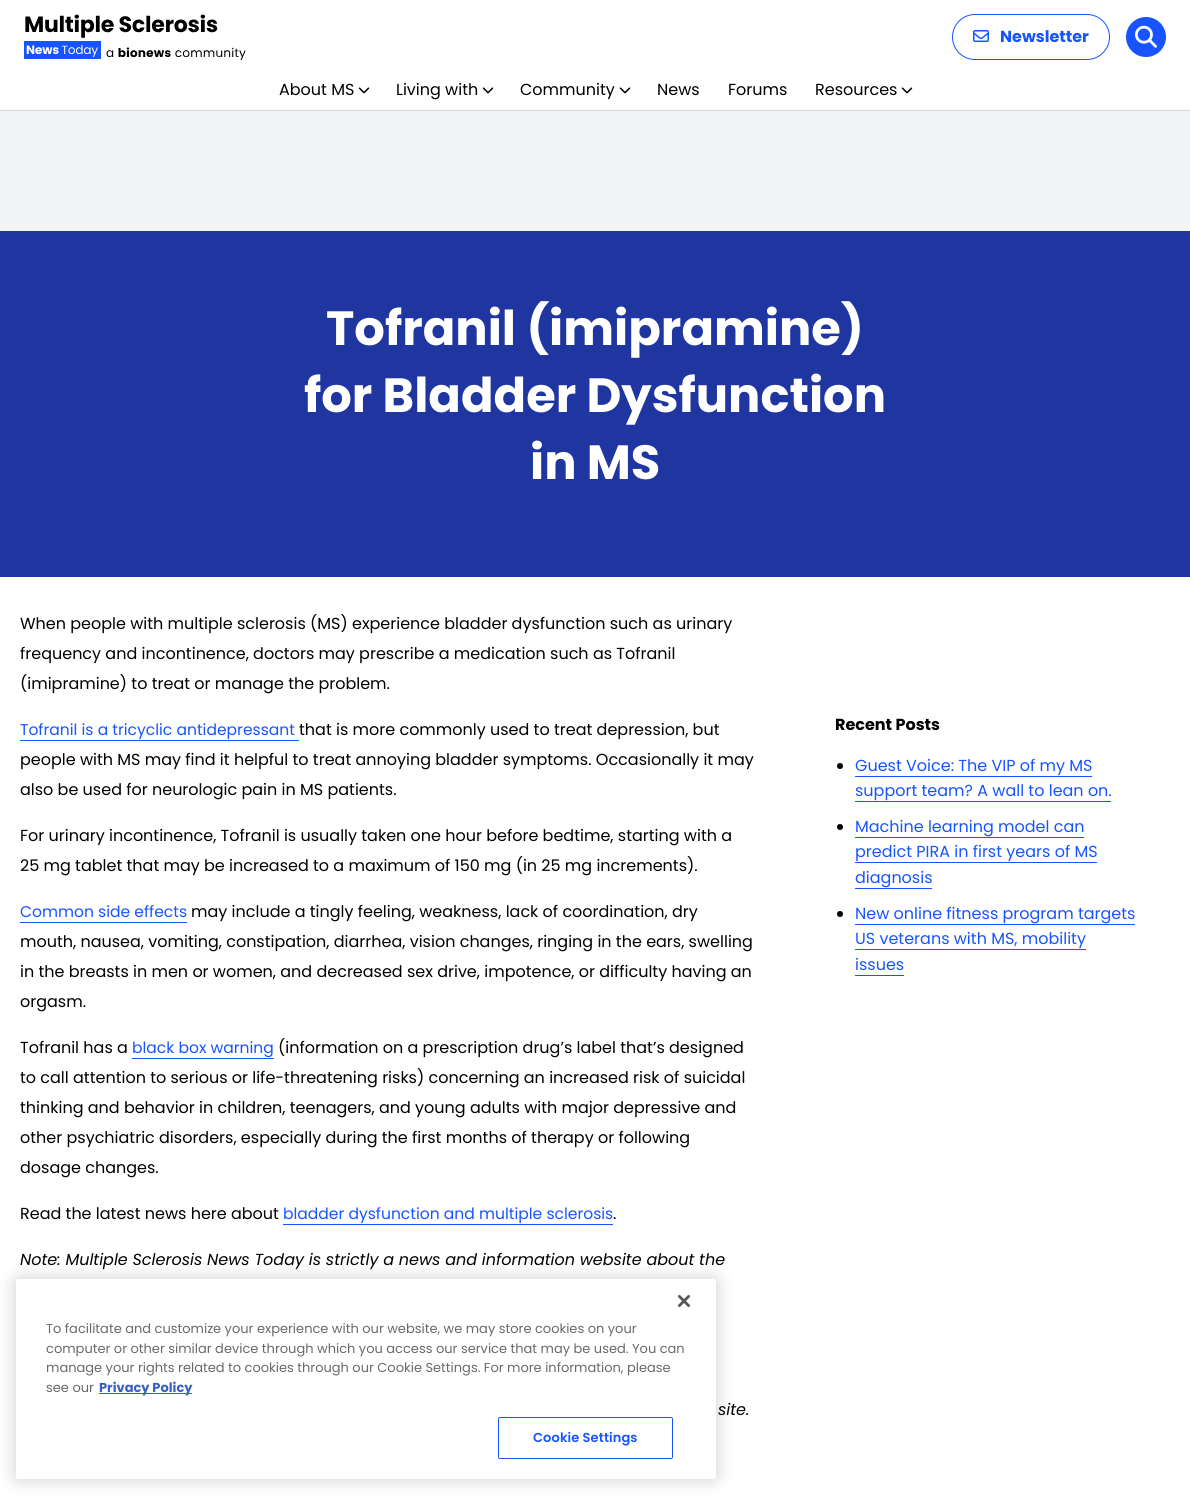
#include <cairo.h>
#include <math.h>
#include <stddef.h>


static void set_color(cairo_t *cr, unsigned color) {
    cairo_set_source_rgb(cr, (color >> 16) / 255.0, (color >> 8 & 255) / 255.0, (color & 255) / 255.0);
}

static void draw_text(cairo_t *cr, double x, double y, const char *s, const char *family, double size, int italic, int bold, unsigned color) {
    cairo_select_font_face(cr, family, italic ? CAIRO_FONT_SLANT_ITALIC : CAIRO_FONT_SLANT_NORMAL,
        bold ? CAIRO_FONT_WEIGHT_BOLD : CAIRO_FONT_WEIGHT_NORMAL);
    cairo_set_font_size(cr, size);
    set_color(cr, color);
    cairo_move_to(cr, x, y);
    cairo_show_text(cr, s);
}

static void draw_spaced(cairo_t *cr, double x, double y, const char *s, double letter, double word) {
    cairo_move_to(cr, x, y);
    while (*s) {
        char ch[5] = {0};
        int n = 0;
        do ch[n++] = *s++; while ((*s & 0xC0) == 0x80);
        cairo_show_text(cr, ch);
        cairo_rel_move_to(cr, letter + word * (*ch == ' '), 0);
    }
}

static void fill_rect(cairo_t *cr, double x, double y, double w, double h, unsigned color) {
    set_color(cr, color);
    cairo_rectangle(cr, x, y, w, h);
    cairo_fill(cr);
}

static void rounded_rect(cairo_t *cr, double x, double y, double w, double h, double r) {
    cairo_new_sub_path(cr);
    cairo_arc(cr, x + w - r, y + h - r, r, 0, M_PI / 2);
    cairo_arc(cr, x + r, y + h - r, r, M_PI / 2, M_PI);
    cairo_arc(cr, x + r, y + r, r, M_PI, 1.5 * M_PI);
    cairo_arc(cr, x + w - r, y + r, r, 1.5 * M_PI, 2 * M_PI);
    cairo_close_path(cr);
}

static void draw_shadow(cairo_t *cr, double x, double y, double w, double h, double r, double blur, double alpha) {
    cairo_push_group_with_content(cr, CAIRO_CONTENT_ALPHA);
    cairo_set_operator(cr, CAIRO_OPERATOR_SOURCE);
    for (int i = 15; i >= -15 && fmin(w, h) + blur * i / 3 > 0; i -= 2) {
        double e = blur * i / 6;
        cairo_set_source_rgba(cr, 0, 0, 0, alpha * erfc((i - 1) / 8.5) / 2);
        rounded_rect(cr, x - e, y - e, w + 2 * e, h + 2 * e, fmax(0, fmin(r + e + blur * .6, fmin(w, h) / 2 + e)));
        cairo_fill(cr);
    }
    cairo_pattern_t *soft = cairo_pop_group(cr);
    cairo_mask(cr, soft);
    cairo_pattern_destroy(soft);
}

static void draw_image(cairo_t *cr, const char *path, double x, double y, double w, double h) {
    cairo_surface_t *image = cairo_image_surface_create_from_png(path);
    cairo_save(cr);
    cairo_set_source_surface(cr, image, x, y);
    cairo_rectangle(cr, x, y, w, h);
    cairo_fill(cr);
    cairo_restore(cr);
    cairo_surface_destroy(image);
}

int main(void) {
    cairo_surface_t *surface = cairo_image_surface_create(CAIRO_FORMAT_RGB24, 1190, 1495);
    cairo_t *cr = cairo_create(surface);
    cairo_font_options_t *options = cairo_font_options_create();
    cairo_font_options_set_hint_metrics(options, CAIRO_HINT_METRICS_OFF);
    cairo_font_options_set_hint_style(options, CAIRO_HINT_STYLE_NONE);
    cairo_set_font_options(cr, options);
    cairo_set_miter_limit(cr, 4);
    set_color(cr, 0xFFFFFF);
    cairo_paint(cr);
    fill_rect(cr, 0, 110, 1190, 1, 0xD7D7D7);
    draw_image(cr, "assets/img1.png", 24, 14, 222, 46);
    rounded_rect(cr, 952.5, 14.5, 157, 45, 22.5);
    set_color(cr, 0x1754FF);
    cairo_set_line_width(cr, 1);
    cairo_stroke(cr);
    draw_image(cr, "assets/img2.png", 973, 30, 16, 12);
    draw_text(cr, 1000, 42, "Newsletter", "Poppins", 16, 0, 1, 0x1754FF);
    cairo_new_path(cr);
    cairo_arc(cr, 1146, 37, 20, 0, 2 * M_PI);
    cairo_fill(cr);
    draw_image(cr, "assets/img3.png", 1135, 25, 22, 23);
    draw_text(cr, 279, 95, "About MS", "Poppins", 16, 0, 0, 0x000000);
    draw_image(cr, "assets/img4.png", 358, 87, 12, 7);
    draw_text(cr, 396, 95, "Living with", "Poppins", 16, 0, 0, 0x000000);
    draw_image(cr, "assets/img4.png", 482, 87, 12, 7);
    draw_text(cr, 520, 95, "Community", "Poppins", 16, 0, 0, 0x000000);
    draw_image(cr, "assets/img4.png", 619, 87, 12, 7);
    draw_text(cr, 657, 95, "News", "Poppins", 16, 0, 0, 0x000000);
    draw_text(cr, 728, 95, "Forums", "Poppins", 16, 0, 0, 0x000000);
    draw_text(cr, 815, 95, "Resources", "Poppins", 16, 0, 0, 0x000000);
    draw_image(cr, "assets/img4.png", 901, 87, 12, 7);
    fill_rect(cr, 0, 111, 1190, 120, 0xF3F4F6);
    fill_rect(cr, 0, 231, 1190, 346, 0x1F35A0);
    draw_text(cr, 326, 345, "Tofranil (imipramine)", "Poppins", 48, 0, 1, 0xFFFFFF);
    draw_text(cr, 304, 412, "for Bladder Dysfunction", "Poppins", 48, 0, 1, 0xFFFFFF);
    draw_text(cr, 530, 479, "in MS", "Poppins", 48, 0, 1, 0xFFFFFF);
    draw_text(cr, 20, 629, "When people with multiple sclerosis (MS) experience bladder dysfunction such as urinary", "Poppins", 16, 0, 0, 0x000000);
    draw_text(cr, 20, 659, "frequency and incontinence, doctors may prescribe a medication such as Tofranil", "Poppins", 16, 0, 0, 0x000000);
    draw_text(cr, 20, 689, "(imipramine) to treat or manage the problem.", "Poppins", 16, 0, 0, 0x000000);
    draw_text(cr, 20, 735, "Tofranil is a tricyclic antidepressant", "Poppins", 15.55, 0, 0, 0x1754FF);
    fill_rect(cr, 20, 740, 279, 1, 0x1754FF);
    draw_text(cr, 299, 735, "that is more commonly used to treat depression, but", "Poppins", 16, 0, 0, 0x000000);
    draw_text(cr, 20, 765, "people with MS may find it helpful to treat annoying bladder symptoms. Occasionally it may", "Poppins", 16, 0, 0, 0x000000);
    draw_text(cr, 20, 795, "also be used for neurologic pain in MS patients.", "Poppins", 16, 0, 0, 0x000000);
    draw_text(cr, 20, 841, "For urinary incontinence, Tofranil is usually taken one hour before bedtime, starting with a", "Poppins", 16, 0, 0, 0x000000);
    draw_text(cr, 20, 871, "25 mg tablet that may be increased to a maximum of 150 mg (in 25 mg increments).", "Poppins", 16, 0, 0, 0x000000);
    draw_text(cr, 20, 917, "Common side effects", "Poppins", 15.55, 0, 0, 0x1754FF);
    fill_rect(cr, 20, 922, 167, 1, 0x1754FF);
    draw_text(cr, 191, 917, "may include a tingly feeling, weakness, lack of coordination, dry", "Poppins", 16, 0, 0, 0x000000);
    draw_text(cr, 20, 947, "mouth, nausea, vomiting, constipation, diarrhea, vision changes, ringing in the ears, swelling", "Poppins", 16, 0, 0, 0x000000);
    draw_text(cr, 20, 977, "in the breasts in men or women, and decreased sex drive, impotence, or difficulty having an", "Poppins", 16, 0, 0, 0x000000);
    draw_text(cr, 20, 1007, "orgasm.", "Poppins", 16, 0, 0, 0x000000);
    draw_text(cr, 20, 1053, "Tofranil has a", "Poppins", 16, 0, 0, 0x000000);
    draw_text(cr, 132, 1053, "black box warning", "Poppins", 15.55, 0, 0, 0x1754FF);
    fill_rect(cr, 132, 1058, 142, 1, 0x1754FF);
    draw_text(cr, 278, 1053, "(information on a prescription drug’s label that’s designed", "Poppins", 16, 0, 0, 0x000000);
    draw_text(cr, 20, 1083, "to call attention to serious or life-threatening risks) concerning an increased risk of suicidal", "Poppins", 16, 0, 0, 0x000000);
    draw_text(cr, 20, 1113, "thinking and behavior in children, teenagers, and young adults with major depressive and", "Poppins", 16, 0, 0, 0x000000);
    draw_text(cr, 20, 1143, "other psychiatric disorders, especially during the first months of therapy or following", "Poppins", 16, 0, 0, 0x000000);
    draw_text(cr, 20, 1173, "dosage changes.", "Poppins", 16, 0, 0, 0x000000);
    draw_text(cr, 20, 1219, "Read the latest news here about", "Poppins", 16, 0, 0, 0x000000);
    draw_text(cr, 283, 1219, "bladder dysfunction and multiple sclerosis", "Poppins", 15.55, 0, 0, 0x1754FF);
    fill_rect(cr, 283, 1224, 330, 1, 0x1754FF);
    draw_text(cr, 613, 1219, ".", "Poppins", 16, 0, 0, 0x000000);
    draw_text(cr, 20, 1265, "Note: Multiple Sclerosis News Today is strictly a news and information website about the", "Poppins", 16, 1, 0, 0x000000);
    draw_text(cr, 718, 1415, "site.", "Poppins", 16, 1, 0, 0x000000);
    draw_text(cr, 835, 730, "Recent Posts", "Poppins", 16, 0, 1, 0x000000);
    cairo_new_path(cr);
    cairo_arc(cr, 840, 766, 3, 0, 2 * M_PI);
    cairo_fill(cr);
    draw_text(cr, 855, 771, "Guest Voice: The VIP of my MS", "Poppins", 16, 0, 0, 0x1754FF);
    fill_rect(cr, 855, 776, 237, 1, 0x1754FF);
    draw_text(cr, 855, 796, "support team? A wall to lean on.", "Poppins", 16, 0, 0, 0x1754FF);
    fill_rect(cr, 855, 801, 256, 1, 0x1754FF);
    set_color(cr, 0x000000);
    cairo_new_path(cr);
    cairo_arc(cr, 840, 827, 3, 0, 2 * M_PI);
    cairo_fill(cr);
    draw_text(cr, 855, 832, "Machine learning model can", "Poppins", 16, 0, 0, 0x1754FF);
    fill_rect(cr, 855, 837, 229, 1, 0x1754FF);
    draw_text(cr, 855, 857, "predict PIRA in first years of MS", "Poppins", 16, 0, 0, 0x1754FF);
    fill_rect(cr, 855, 862, 242, 1, 0x1754FF);
    draw_text(cr, 855, 883, "diagnosis", "Poppins", 16, 0, 0, 0x1754FF);
    fill_rect(cr, 855, 888, 77, 1, 0x1754FF);
    set_color(cr, 0x000000);
    cairo_new_path(cr);
    cairo_arc(cr, 840, 914, 3, 0, 2 * M_PI);
    cairo_fill(cr);
    draw_text(cr, 855, 919, "New online fitness program targets", "Poppins", 16, 0, 0, 0x1754FF);
    fill_rect(cr, 855, 924, 280, 1, 0x1754FF);
    draw_text(cr, 855, 944, "US veterans with MS, mobility", "Poppins", 16, 0, 0, 0x1754FF);
    fill_rect(cr, 855, 949, 231, 1, 0x1754FF);
    draw_text(cr, 855, 970, "issues", "Poppins", 16, 0, 0, 0x1754FF);
    fill_rect(cr, 855, 975, 49, 1, 0x1754FF);
    set_color(cr, 0x000000);
    draw_shadow(cr, 16, 1279, 700, 200, 2.5, 9, 0.2);
    set_color(cr, 0xFFFFFF);
    rounded_rect(cr, 16, 1279, 700, 200, 2.5);
    cairo_fill(cr);
    draw_image(cr, "assets/img5.png", 678, 1295, 12, 12);
    draw_text(cr, 46, 1333, "To facilitate and customize your experience with our website, we may store cookies on your", "Poppins", 13, 0, 0, 0x696969);
    draw_text(cr, 46, 1353, "computer or other similar device through which you access our service that may be used. You can", "Poppins", 13, 0, 0, 0x696969);
    draw_text(cr, 46, 1372, "manage your rights related to cookies through our Cookie Settings. For more information, please", "Poppins", 13, 0, 0, 0x696969);
    draw_text(cr, 46, 1392, "see our", "Poppins", 13, 0, 0, 0x696969);
    fill_rect(cr, 99, 1393, 93, 1, 0x3860BE);
    draw_text(cr, 99, 1392, "Privacy Policy", "Poppins", 13, 0, 1, 0x3860BE);
    rounded_rect(cr, 498.5, 1417.5, 174, 41, 1.5);
    set_color(cr, 0x1754FF);
    cairo_stroke(cr);
    cairo_select_font_face(cr, "Poppins SemiBold", CAIRO_FONT_SLANT_NORMAL, CAIRO_FONT_WEIGHT_NORMAL);
    draw_spaced(cr, 533, 1442, "Cookie Settings", 0.1, 0);
    cairo_surface_write_to_png(surface, "output.png");
    cairo_font_options_destroy(options);
    cairo_destroy(cr);
    cairo_surface_destroy(surface);
    return 0;
}
